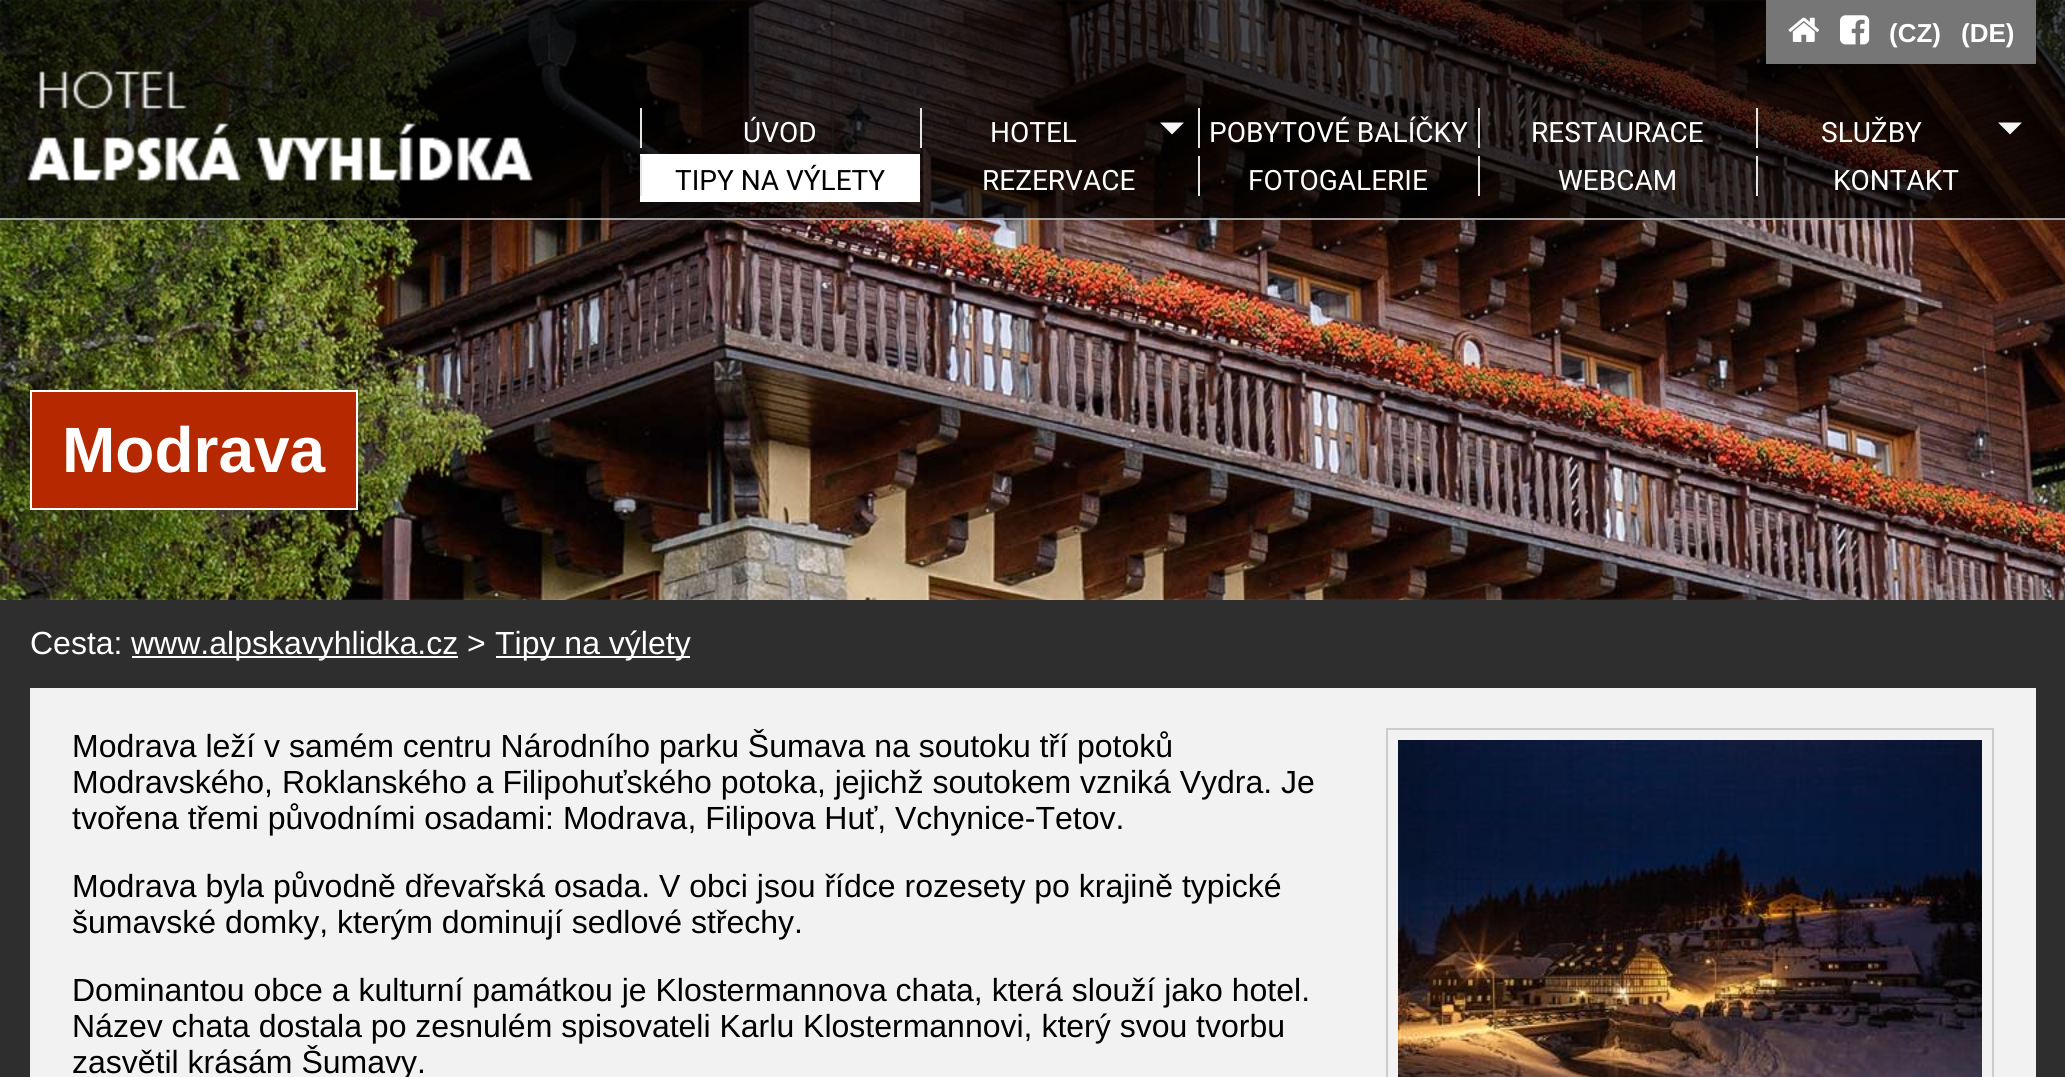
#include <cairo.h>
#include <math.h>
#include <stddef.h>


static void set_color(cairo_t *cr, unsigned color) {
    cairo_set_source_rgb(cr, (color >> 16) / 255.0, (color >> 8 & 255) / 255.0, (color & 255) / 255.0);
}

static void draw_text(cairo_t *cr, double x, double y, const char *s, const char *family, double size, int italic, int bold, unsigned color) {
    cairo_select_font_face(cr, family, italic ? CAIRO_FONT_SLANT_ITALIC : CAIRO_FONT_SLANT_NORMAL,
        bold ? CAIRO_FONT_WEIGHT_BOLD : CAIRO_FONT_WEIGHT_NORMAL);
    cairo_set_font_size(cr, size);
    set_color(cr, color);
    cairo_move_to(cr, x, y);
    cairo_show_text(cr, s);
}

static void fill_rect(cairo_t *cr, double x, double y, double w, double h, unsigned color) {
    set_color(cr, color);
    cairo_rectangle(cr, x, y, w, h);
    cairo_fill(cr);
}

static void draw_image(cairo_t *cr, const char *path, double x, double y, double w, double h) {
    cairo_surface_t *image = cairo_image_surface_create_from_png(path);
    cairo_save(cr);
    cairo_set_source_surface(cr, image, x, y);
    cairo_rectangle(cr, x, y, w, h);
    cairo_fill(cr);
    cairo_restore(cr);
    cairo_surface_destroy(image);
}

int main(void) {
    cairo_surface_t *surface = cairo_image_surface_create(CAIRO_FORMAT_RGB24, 2065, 1077);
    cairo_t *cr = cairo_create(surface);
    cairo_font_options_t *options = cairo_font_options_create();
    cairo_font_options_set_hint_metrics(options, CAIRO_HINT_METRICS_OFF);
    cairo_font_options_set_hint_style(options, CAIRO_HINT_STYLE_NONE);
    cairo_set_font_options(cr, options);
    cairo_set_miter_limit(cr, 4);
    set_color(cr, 0x2E2E2E);
    cairo_paint(cr);
    draw_image(cr, "assets/img4.png", 0, 0, 2065, 600);
    cairo_set_source_rgba(cr, 0, 0, 0, 0.7);
    cairo_rectangle(cr, 0, 0, 2065, 220);
    cairo_fill(cr);
    cairo_set_source_rgba(cr, 1, 1, 1, 0.61);
    cairo_rectangle(cr, 0, 218, 2065, 2);
    cairo_fill(cr);
    fill_rect(cr, 1766, 0, 270, 64, 0x777676);
    draw_image(cr, "assets/img1.png", 1788, 17, 31, 25);
    draw_image(cr, "assets/img2.png", 1840, 15, 30, 30);
    draw_text(cr, 1889, 42, "(CZ)", "Liberation Sans", 26, 0, 1, 0xFFFFFF);
    draw_text(cr, 1961, 42, "(DE)", "Liberation Sans", 26, 0, 1, 0xFFFFFF);
    draw_image(cr, "assets/img3.png", 27, 71, 506, 110);
    fill_rect(cr, 640, 108, 2, 40, 0xE5E5E5);
    draw_text(cr, 743, 142, "ÚVOD", "Roboto", 28, 0, 0, 0xFFFFFF);
    fill_rect(cr, 920, 108, 2, 40, 0xE5E5E5);
    draw_text(cr, 990, 142, "HOTEL", "Roboto", 28, 0, 0, 0xFFFFFF);
    set_color(cr, 0xF6F6F6);
    cairo_new_path(cr);
    cairo_move_to(cr, 1160, 122.5);
    cairo_line_to(cr, 1184, 122.5);
    cairo_line_to(cr, 1172, 134.5);
    cairo_close_path(cr);
    cairo_fill(cr);
    fill_rect(cr, 1198, 108, 2, 40, 0xE5E5E5);
    draw_text(cr, 1209, 142, "POBYTOVÉ BALÍČKY", "Roboto", 28, 0, 0, 0xFFFFFF);
    fill_rect(cr, 1478, 108, 2, 40, 0xE5E5E5);
    draw_text(cr, 1531, 142, "RESTAURACE", "Roboto", 28, 0, 0, 0xFFFFFF);
    fill_rect(cr, 1756, 108, 2, 40, 0xE5E5E5);
    draw_text(cr, 1821, 142, "SLUŽBY", "Roboto", 28, 0, 0, 0xFFFFFF);
    set_color(cr, 0xF6F6F6);
    cairo_new_path(cr);
    cairo_move_to(cr, 1998, 122.5);
    cairo_line_to(cr, 2022, 122.5);
    cairo_line_to(cr, 2010, 134.5);
    cairo_close_path(cr);
    cairo_fill(cr);
    fill_rect(cr, 640, 154, 280, 48, 0xFFFFFF);
    fill_rect(cr, 640, 156, 2, 40, 0xE5E5E5);
    draw_text(cr, 675, 190, "TIPY NA VÝLETY", "Roboto", 28, 0, 0, 0x000000);
    draw_text(cr, 982, 190, "REZERVACE", "Roboto", 28, 0, 0, 0xFFFFFF);
    fill_rect(cr, 1198, 156, 2, 40, 0xE5E5E5);
    draw_text(cr, 1248, 190, "FOTOGALERIE", "Roboto", 28, 0, 0, 0xFFFFFF);
    fill_rect(cr, 1478, 156, 2, 40, 0xE5E5E5);
    draw_text(cr, 1558, 190, "WEBCAM", "Roboto", 28, 0, 0, 0xFFFFFF);
    fill_rect(cr, 1756, 156, 2, 40, 0xE5E5E5);
    draw_text(cr, 1833, 190, "KONTAKT", "Roboto", 28, 0, 0, 0xFFFFFF);
    set_color(cr, 0xB52800);
    cairo_rectangle(cr, 31, 391, 326, 118);
    cairo_fill_preserve(cr);
    set_color(cr, 0xFFFFFF);
    cairo_stroke(cr);
    draw_text(cr, 62, 472, "Modrava", "Liberation Sans", 64, 0, 1, 0xFFFFFF);
    draw_text(cr, 30, 654, "Cesta:", "Liberation Sans", 32, 0, 0, 0xFFFFFF);
    fill_rect(cr, 132, 656, 326, 2, 0xFFFFFF);
    draw_text(cr, 131, 654, "www.alpskavyhlidka.cz >", "Liberation Sans", 32, 0, 0, 0xFFFFFF);
    fill_rect(cr, 496, 656, 194, 2, 0xFFFFFF);
    draw_text(cr, 495, 654, "Tipy na výlety", "Liberation Sans", 32, 0, 0, 0xFFFFFF);
    fill_rect(cr, 30, 688, 2006, 389, 0xF2F2F2);
    draw_text(cr, 72, 757, "Modrava leží v samém centru Národního parku Šumava na soutoku tří potoků", "Liberation Sans", 32, 0, 0, 0x000000);
    draw_text(cr, 72, 793, "Modravského, Roklanského a Filipohuťského potoka, jejichž soutokem vzniká Vydra. Je", "Liberation Sans", 32, 0, 0, 0x000000);
    draw_text(cr, 72, 829, "tvořena třemi původními osadami: Modrava, Filipova Huť, Vchynice-Tetov.", "Liberation Sans", 32, 0, 0, 0x000000);
    draw_text(cr, 72, 897, "Modrava byla původně dřevařská osada. V obci jsou řídce rozesety po krajině typické", "Liberation Sans", 32, 0, 0, 0x000000);
    draw_text(cr, 72, 933, "šumavské domky, kterým dominují sedlové střechy.", "Liberation Sans", 32, 0, 0, 0x000000);
    draw_text(cr, 72, 1001, "Dominantou obce a kulturní památkou je Klostermannova chata, která slouží jako hotel.", "Liberation Sans", 32, 0, 0, 0x000000);
    draw_text(cr, 72, 1037, "Název chata dostala po zesnulém spisovateli Karlu Klostermannovi, který svou tvorbu", "Liberation Sans", 32, 0, 0, 0x000000);
    draw_text(cr, 72, 1073, "zasvětil krásám Šumavy.", "Liberation Sans", 32, 0, 0, 0x000000);
    cairo_rectangle(cr, 1387, 729, 606, 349);
    set_color(cr, 0xCCCCCC);
    cairo_stroke(cr);
    draw_image(cr, "assets/img5.png", 1398, 740, 584, 337);
    cairo_surface_write_to_png(surface, "output.png");
    cairo_font_options_destroy(options);
    cairo_destroy(cr);
    cairo_surface_destroy(surface);
    return 0;
}
